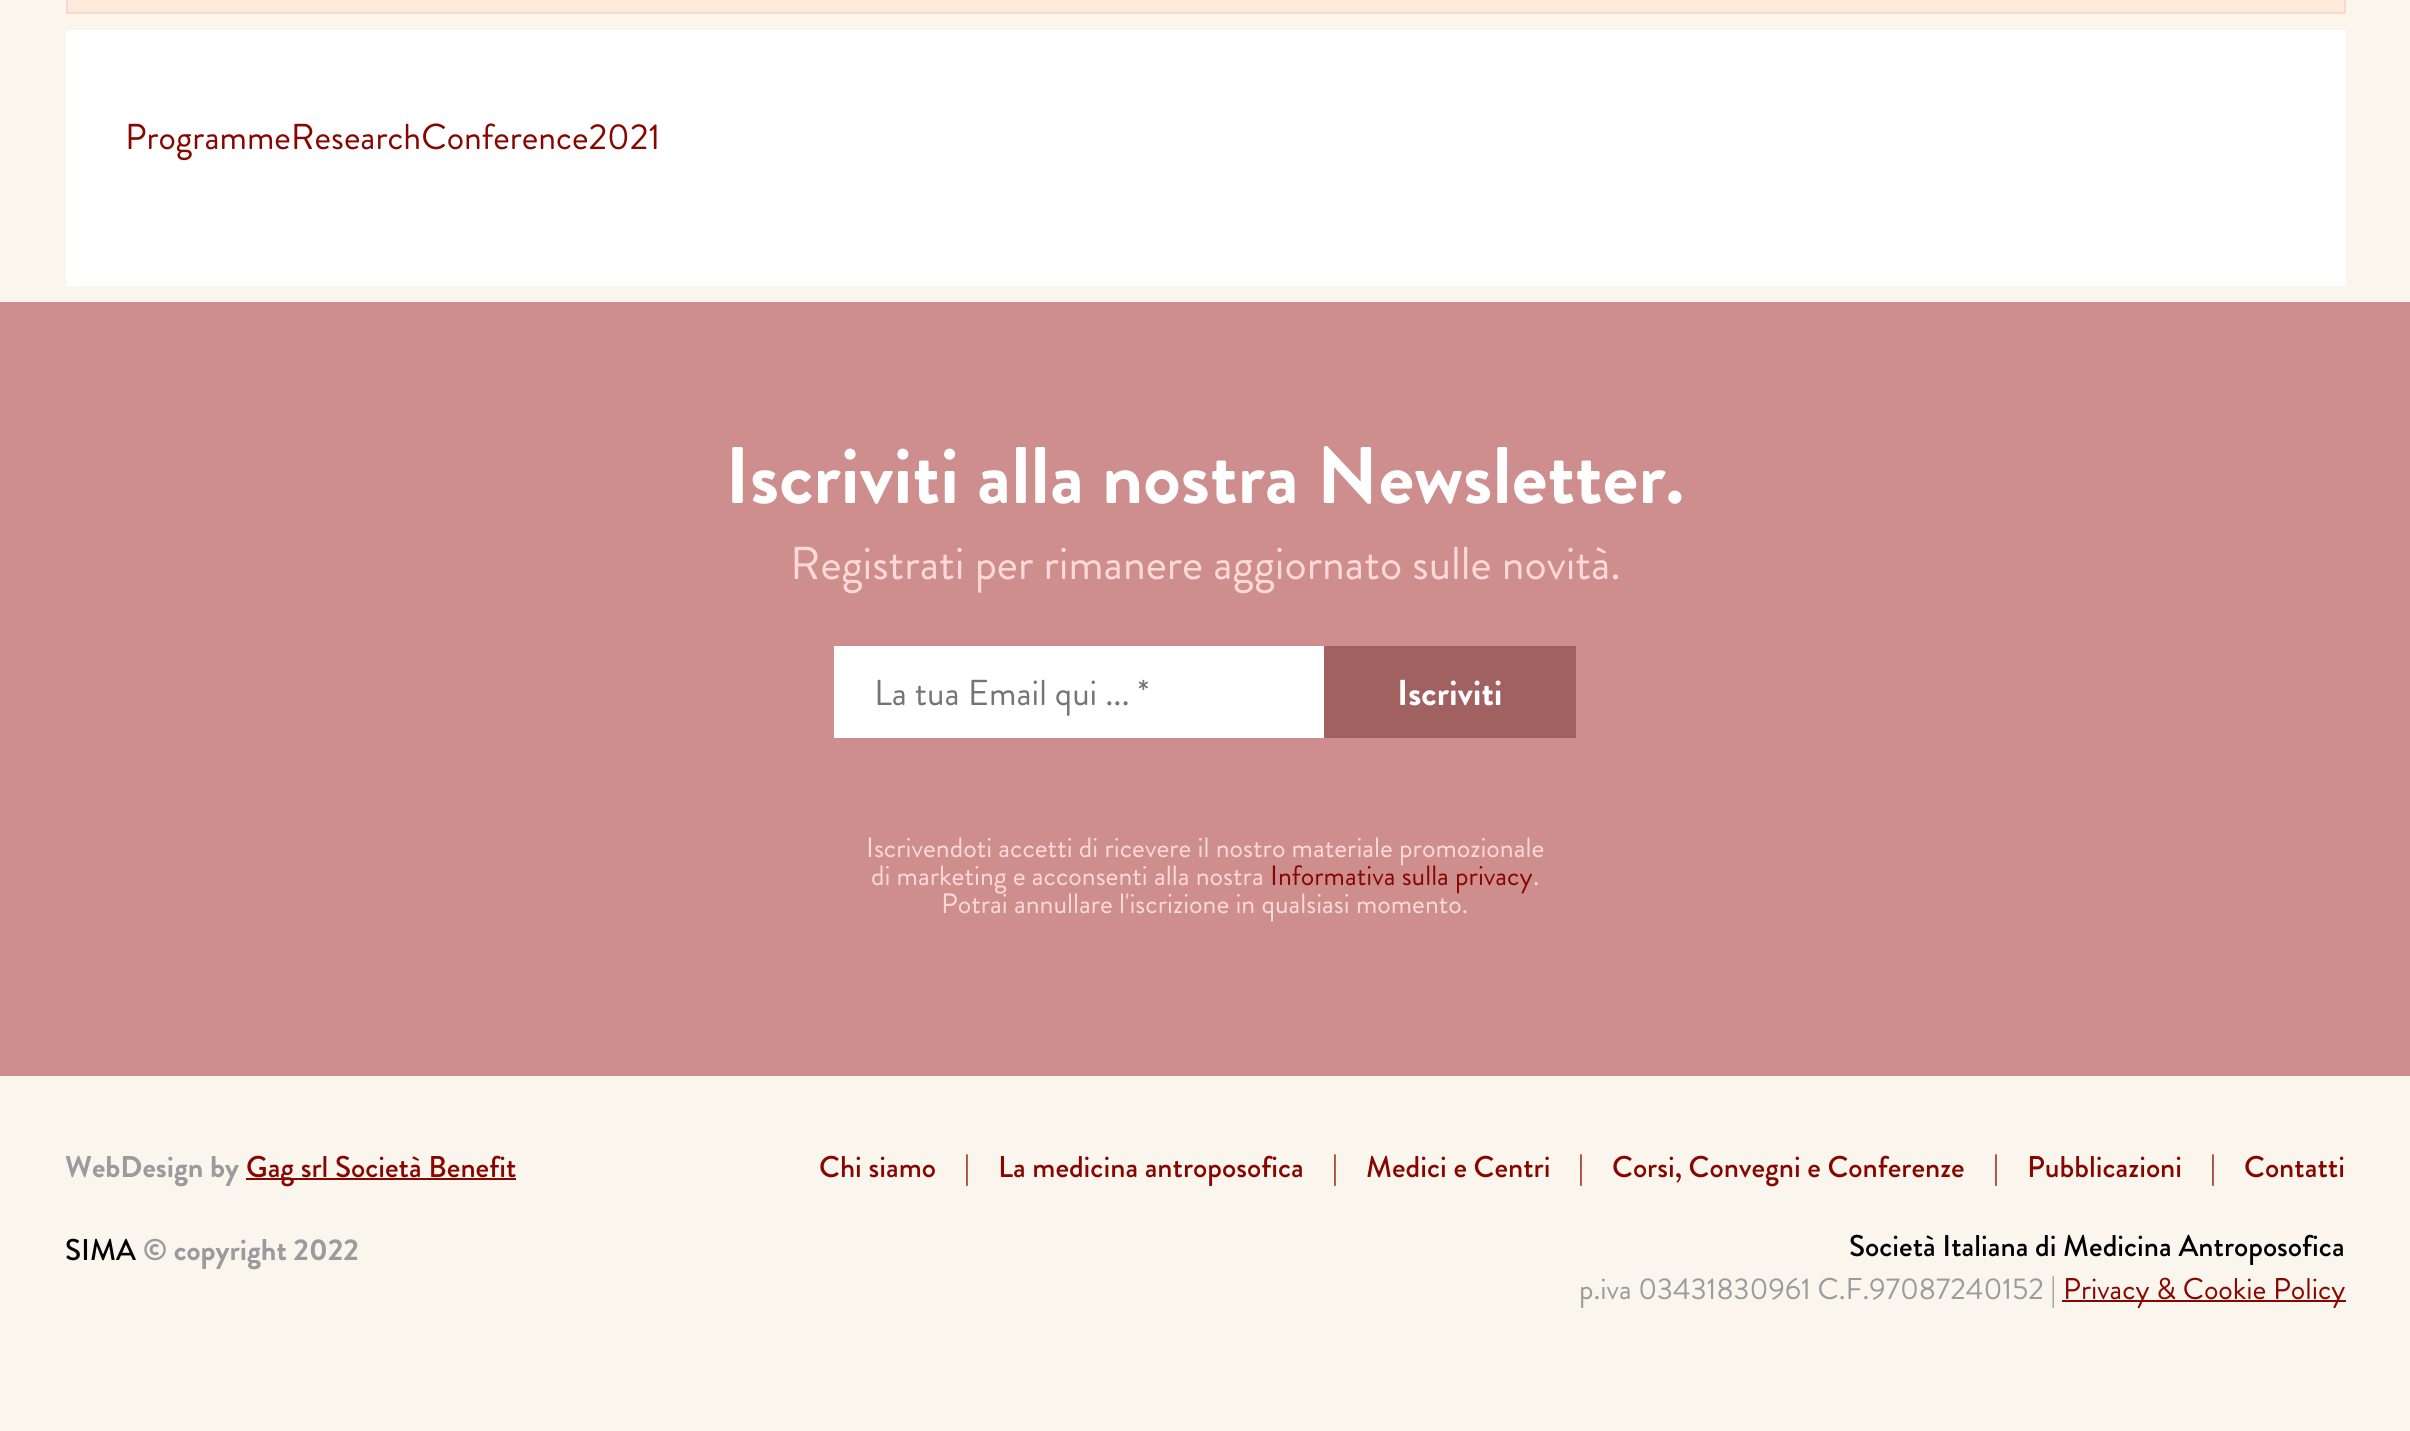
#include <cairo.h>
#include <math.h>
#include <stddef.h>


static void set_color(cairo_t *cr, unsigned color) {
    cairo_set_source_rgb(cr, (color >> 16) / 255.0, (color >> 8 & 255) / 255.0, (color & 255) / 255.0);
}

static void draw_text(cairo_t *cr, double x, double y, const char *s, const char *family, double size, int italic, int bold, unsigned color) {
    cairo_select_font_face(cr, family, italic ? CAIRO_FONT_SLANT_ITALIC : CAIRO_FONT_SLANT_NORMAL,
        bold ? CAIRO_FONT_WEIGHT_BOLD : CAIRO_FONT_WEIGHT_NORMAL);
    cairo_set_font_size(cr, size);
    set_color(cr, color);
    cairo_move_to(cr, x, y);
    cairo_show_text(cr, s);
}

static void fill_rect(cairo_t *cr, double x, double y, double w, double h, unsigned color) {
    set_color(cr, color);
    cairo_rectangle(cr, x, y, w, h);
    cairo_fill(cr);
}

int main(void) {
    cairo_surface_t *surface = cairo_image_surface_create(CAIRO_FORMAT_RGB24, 2410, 1431);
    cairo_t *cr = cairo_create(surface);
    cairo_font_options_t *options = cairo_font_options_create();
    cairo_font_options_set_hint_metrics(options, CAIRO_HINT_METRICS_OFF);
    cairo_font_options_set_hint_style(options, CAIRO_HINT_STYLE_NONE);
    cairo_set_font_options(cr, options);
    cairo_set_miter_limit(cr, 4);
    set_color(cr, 0xFAF5ED);
    cairo_paint(cr);
    set_color(cr, 0xFFEADC);
    cairo_rectangle(cr, 67, -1, 2278, 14);
    cairo_fill_preserve(cr);
    set_color(cr, 0xF8DACC);
    cairo_stroke(cr);
    fill_rect(cr, 66, 30, 2280, 256, 0xFFFFFF);
    draw_text(cr, 125, 149, "ProgrammeResearchConference2021", "Brandon Grotesque", 36, 0, 0, 0x880600);
    fill_rect(cr, 0, 302, 2410, 774, 0xCE8E8E);
    draw_text(cr, 725, 503, "Iscriviti alla nostra Newsletter.", "Brandon Grotesque", 80, 0, 1, 0xFFFFFF);
    draw_text(cr, 790, 579, "Registrati per rimanere aggiornato sulle novità.", "Brandon Grotesque", 46, 0, 0, 0xFFD9D5);
    fill_rect(cr, 834, 646, 490, 92, 0xFFFFFF);
    draw_text(cr, 874, 705, "La tua Email qui ... *", "Brandon Grotesque", 36, 0, 0, 0x757575);
    fill_rect(cr, 1324, 646, 252, 92, 0xA26161);
    draw_text(cr, 1397, 705, "Iscriviti", "Brandon Grotesque", 36, 0, 1, 0xFFFFFF);
    draw_text(cr, 866, 857, "Iscrivendoti accetti di ricevere il nostro materiale promozionale", "Brandon Grotesque", 28, 0, 0, 0xFFD9D5);
    draw_text(cr, 871, 885, "di marketing e acconsenti alla nostra", "Brandon Grotesque", 28, 0, 0, 0xFFD9D5);
    draw_text(cr, 1270, 885, "Informativa sulla privacy", "Brandon Grotesque", 28, 0, 0, 0x880600);
    draw_text(cr, 1533, 885, ".", "Brandon Grotesque", 28, 0, 0, 0xFFD9D5);
    draw_text(cr, 941, 913, "Potrai annullare l'iscrizione in qualsiasi momento.", "Brandon Grotesque", 28, 0, 0, 0xFFD9D5);
    draw_text(cr, 65, 1177, "WebDesign by", "Brandon Grotesque", 30, 0, 1, 0x999B9E);
    fill_rect(cr, 246, 1178, 270, 2, 0x880600);
    draw_text(cr, 246, 1177, "Gag srl Società Benefit", "Brandon Grotesque Medium", 30, 0, 0, 0x880600);
    draw_text(cr, 65, 1260, "SIMA", "Brandon Grotesque Medium", 30, 0, 0, 0x000000);
    draw_text(cr, 143, 1260, "© copyright 2022", "Brandon Grotesque", 30, 0, 1, 0x999B9E);
    draw_text(cr, 819, 1177, "Chi siamo", "Brandon Grotesque Medium", 30, 0, 0, 0x880600);
    draw_text(cr, 964, 1177, "|", "Brandon Grotesque", 30, 0, 0, 0x880600);
    draw_text(cr, 998, 1177, "La medicina antroposofica", "Brandon Grotesque Medium", 30, 0, 0, 0x880600);
    draw_text(cr, 1332, 1177, "|", "Brandon Grotesque", 30, 0, 0, 0x880600);
    draw_text(cr, 1366, 1177, "Medici e Centri", "Brandon Grotesque Medium", 30, 0, 0, 0x880600);
    draw_text(cr, 1578, 1177, "|", "Brandon Grotesque", 30, 0, 0, 0x880600);
    draw_text(cr, 1612, 1177, "Corsi, Convegni e Conferenze", "Brandon Grotesque Medium", 30, 0, 0, 0x880600);
    draw_text(cr, 1993, 1177, "|", "Brandon Grotesque", 30, 0, 0, 0x880600);
    draw_text(cr, 2027, 1177, "Pubblicazioni", "Brandon Grotesque Medium", 30, 0, 0, 0x880600);
    draw_text(cr, 2210, 1177, "|", "Brandon Grotesque", 30, 0, 0, 0x880600);
    draw_text(cr, 2244, 1177, "Contatti", "Brandon Grotesque Medium", 30, 0, 0, 0x880600);
    draw_text(cr, 1849, 1256, "Società Italiana di Medicina Antroposofica", "Brandon Grotesque Medium", 30, 0, 0, 0x000000);
    draw_text(cr, 1579, 1299, "p.iva 03431830961 C.F.97087240152 |", "Brandon Grotesque", 30, 0, 0, 0x999B9E);
    fill_rect(cr, 2062, 1300, 284, 2, 0x880600);
    draw_text(cr, 2063, 1299, "Privacy & Cookie Policy", "Brandon Grotesque", 30, 0, 0, 0x880600);
    cairo_surface_write_to_png(surface, "output.png");
    cairo_font_options_destroy(options);
    cairo_destroy(cr);
    cairo_surface_destroy(surface);
    return 0;
}
